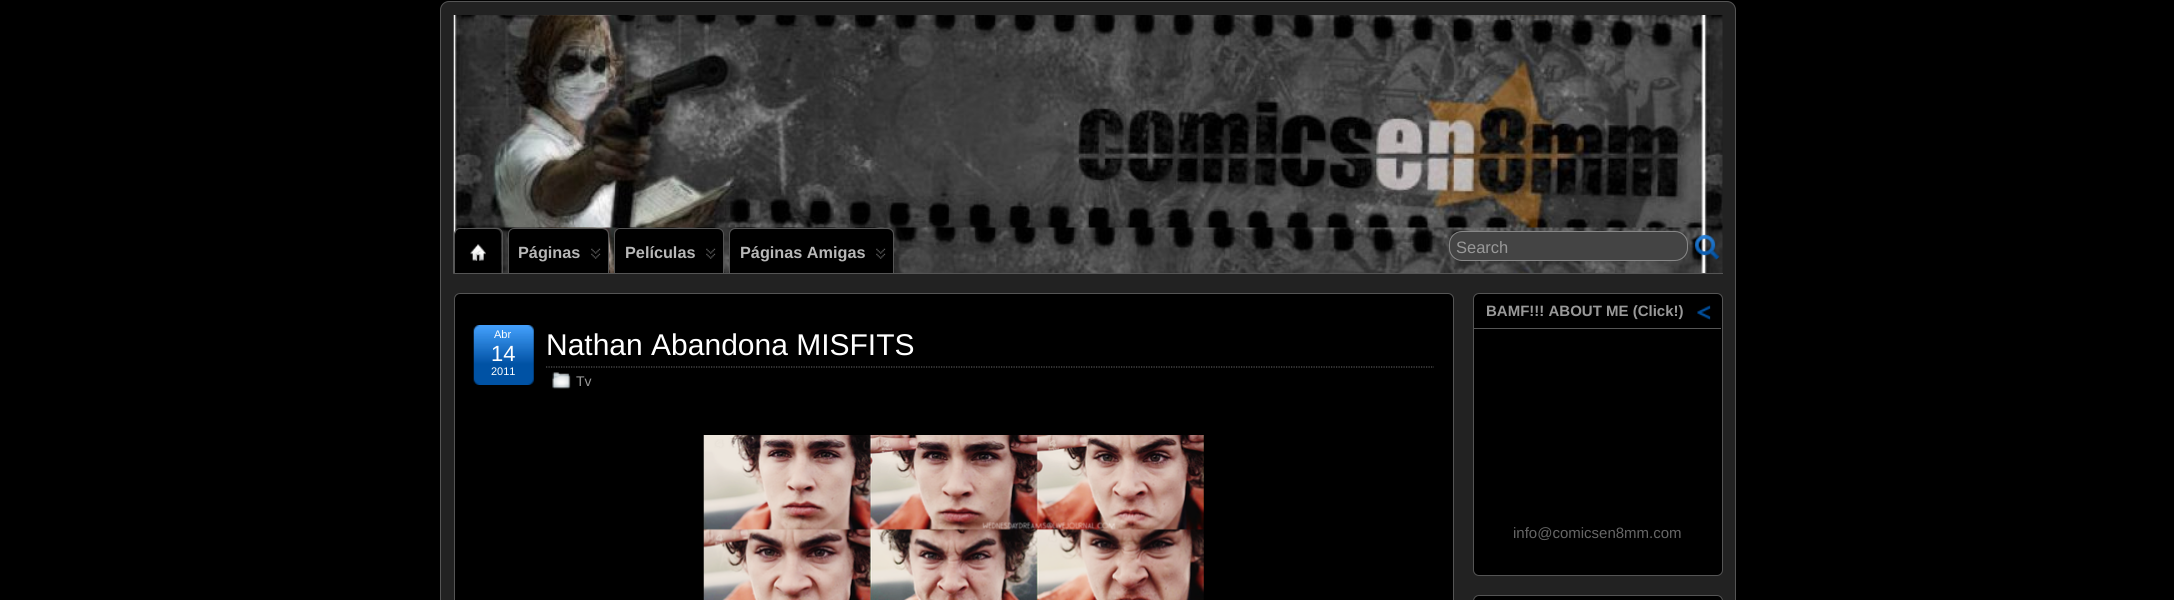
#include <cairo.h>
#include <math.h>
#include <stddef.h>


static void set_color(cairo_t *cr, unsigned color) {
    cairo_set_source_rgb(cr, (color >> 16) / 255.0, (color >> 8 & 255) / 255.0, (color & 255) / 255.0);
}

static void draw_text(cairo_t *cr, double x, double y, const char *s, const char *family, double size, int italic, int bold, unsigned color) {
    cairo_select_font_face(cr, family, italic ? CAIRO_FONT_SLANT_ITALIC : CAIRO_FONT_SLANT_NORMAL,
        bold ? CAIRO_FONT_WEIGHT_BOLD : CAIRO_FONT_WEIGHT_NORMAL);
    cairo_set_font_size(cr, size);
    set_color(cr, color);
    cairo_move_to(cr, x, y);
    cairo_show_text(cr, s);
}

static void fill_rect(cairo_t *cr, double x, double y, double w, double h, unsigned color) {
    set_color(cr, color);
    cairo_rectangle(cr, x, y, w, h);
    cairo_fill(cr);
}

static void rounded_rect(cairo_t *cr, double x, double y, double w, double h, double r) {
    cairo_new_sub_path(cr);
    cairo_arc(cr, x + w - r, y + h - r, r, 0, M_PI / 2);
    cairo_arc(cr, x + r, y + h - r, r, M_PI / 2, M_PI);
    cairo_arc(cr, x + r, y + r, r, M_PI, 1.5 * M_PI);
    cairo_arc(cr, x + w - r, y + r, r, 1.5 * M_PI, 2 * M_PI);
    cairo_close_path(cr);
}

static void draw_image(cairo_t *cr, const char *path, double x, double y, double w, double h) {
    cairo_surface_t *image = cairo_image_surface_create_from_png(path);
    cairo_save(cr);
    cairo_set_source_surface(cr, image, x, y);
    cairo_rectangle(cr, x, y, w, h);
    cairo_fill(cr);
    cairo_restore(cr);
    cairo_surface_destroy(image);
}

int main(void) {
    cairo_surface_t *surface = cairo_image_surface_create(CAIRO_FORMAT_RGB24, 2174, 600);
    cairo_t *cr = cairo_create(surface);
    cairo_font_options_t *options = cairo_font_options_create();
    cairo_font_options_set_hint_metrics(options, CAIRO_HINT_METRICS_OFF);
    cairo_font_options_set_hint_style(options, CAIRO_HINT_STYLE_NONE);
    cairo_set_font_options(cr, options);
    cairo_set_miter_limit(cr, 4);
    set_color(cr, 0x000000);
    cairo_paint(cr);
    set_color(cr, 0x222222);
    rounded_rect(cr, 440.5, 1.5, 1295, 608, 8.5);
    cairo_fill_preserve(cr);
    set_color(cr, 0x555555);
    cairo_set_line_width(cr, 1);
    cairo_stroke(cr);
    draw_image(cr, "assets/img1.png", 453, 15, 1270, 259);
    fill_rect(cr, 503, 273, 1220, 1, 0x555555);
    cairo_new_path(cr);
    cairo_move_to(cr, 460, 228.5);
    cairo_line_to(cr, 497, 228.5);
    cairo_curve_to(cr, 500, 228.5, 502.5, 231, 502.5, 234);
    cairo_line_to(cr, 502.5, 273.5);
    cairo_line_to(cr, 454.5, 273.5);
    cairo_line_to(cr, 454.5, 234);
    cairo_curve_to(cr, 454.5, 231, 457, 228.5, 460, 228.5);
    cairo_close_path(cr);
    cairo_stroke(cr);
    set_color(cr, 0x000000);
    cairo_new_path(cr);
    cairo_move_to(cr, 461, 229);
    cairo_line_to(cr, 495, 229);
    cairo_curve_to(cr, 498.5, 229, 501, 231.5, 501, 235);
    cairo_line_to(cr, 501, 273);
    cairo_line_to(cr, 455, 273);
    cairo_line_to(cr, 455, 235);
    cairo_curve_to(cr, 455, 231.5, 457.5, 229, 461, 229);
    cairo_close_path(cr);
    cairo_fill(cr);
    draw_image(cr, "assets/img2.png", 470, 244, 16, 17);
    cairo_new_path(cr);
    cairo_move_to(cr, 514, 228.5);
    cairo_line_to(cr, 603, 228.5);
    cairo_curve_to(cr, 606, 228.5, 608.5, 231, 608.5, 234);
    cairo_line_to(cr, 608.5, 273.5);
    cairo_line_to(cr, 508.5, 273.5);
    cairo_line_to(cr, 508.5, 234);
    cairo_curve_to(cr, 508.5, 231, 511, 228.5, 514, 228.5);
    cairo_close_path(cr);
    set_color(cr, 0x555555);
    cairo_stroke(cr);
    set_color(cr, 0x000000);
    cairo_new_path(cr);
    cairo_move_to(cr, 515, 229);
    cairo_line_to(cr, 602, 229);
    cairo_curve_to(cr, 605.5, 229, 608, 231.5, 608, 235);
    cairo_line_to(cr, 608, 273);
    cairo_line_to(cr, 509, 273);
    cairo_line_to(cr, 509, 235);
    cairo_curve_to(cr, 509, 231.5, 511.5, 229, 515, 229);
    cairo_close_path(cr);
    cairo_fill(cr);
    draw_text(cr, 518, 258, "Páginas", "Liberation Sans", 16.25, 0, 1, 0xB8B8B8);
    draw_image(cr, "assets/img3.png", 591, 248, 10, 11);
    cairo_new_path(cr);
    cairo_move_to(cr, 620, 228.5);
    cairo_line_to(cr, 718, 228.5);
    cairo_curve_to(cr, 721, 228.5, 723.5, 231, 723.5, 234);
    cairo_line_to(cr, 723.5, 273.5);
    cairo_line_to(cr, 614.5, 273.5);
    cairo_line_to(cr, 614.5, 234);
    cairo_curve_to(cr, 614.5, 231, 617, 228.5, 620, 228.5);
    cairo_close_path(cr);
    set_color(cr, 0x555555);
    cairo_stroke(cr);
    set_color(cr, 0x000000);
    cairo_new_path(cr);
    cairo_move_to(cr, 621, 229);
    cairo_line_to(cr, 717, 229);
    cairo_curve_to(cr, 720.5, 229, 723, 231.5, 723, 235);
    cairo_line_to(cr, 723, 273);
    cairo_line_to(cr, 615, 273);
    cairo_line_to(cr, 615, 235);
    cairo_curve_to(cr, 615, 231.5, 617.5, 229, 621, 229);
    cairo_close_path(cr);
    cairo_fill(cr);
    draw_text(cr, 625, 258, "Películas", "Liberation Sans", 16.25, 0, 1, 0xB8B8B8);
    draw_image(cr, "assets/img3.png", 706, 248, 10, 11);
    cairo_new_path(cr);
    cairo_move_to(cr, 735, 228.5);
    cairo_line_to(cr, 888, 228.5);
    cairo_curve_to(cr, 891, 228.5, 893.5, 231, 893.5, 234);
    cairo_line_to(cr, 893.5, 273.5);
    cairo_line_to(cr, 729.5, 273.5);
    cairo_line_to(cr, 729.5, 234);
    cairo_curve_to(cr, 729.5, 231, 732, 228.5, 735, 228.5);
    cairo_close_path(cr);
    set_color(cr, 0x555555);
    cairo_stroke(cr);
    set_color(cr, 0x000000);
    cairo_new_path(cr);
    cairo_move_to(cr, 736, 229);
    cairo_line_to(cr, 887, 229);
    cairo_curve_to(cr, 890.5, 229, 893, 231.5, 893, 235);
    cairo_line_to(cr, 893, 273);
    cairo_line_to(cr, 730, 273);
    cairo_line_to(cr, 730, 235);
    cairo_curve_to(cr, 730, 231.5, 732.5, 229, 736, 229);
    cairo_close_path(cr);
    cairo_fill(cr);
    draw_text(cr, 740, 258, "Páginas Amigas", "Liberation Sans", 16.25, 0, 1, 0xB8B8B8);
    draw_image(cr, "assets/img3.png", 876, 248, 10, 11);
    set_color(cr, 0x444444);
    rounded_rect(cr, 1449.5, 231.5, 238, 29, 12.5);
    cairo_fill_preserve(cr);
    set_color(cr, 0x888888);
    cairo_stroke(cr);
    draw_text(cr, 1456, 253, "Search", "Liberation Sans", 16.5, 0, 0, 0x999999);
    draw_image(cr, "assets/img4.png", 1694, 234, 26, 26);
    set_color(cr, 0x000000);
    rounded_rect(cr, 454.5, 293.5, 999, 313, 5.5);
    cairo_fill_preserve(cr);
    set_color(cr, 0x555555);
    cairo_stroke(cr);
    draw_image(cr, "assets/img5.png", 473, 325, 61, 60);
    draw_text(cr, 494, 338, "Abr", "Liberation Sans", 11, 0, 0, 0xFFFFFF);
    draw_text(cr, 491, 361, "14", "Liberation Sans", 22, 0, 0, 0xFFFFFF);
    draw_text(cr, 491, 375, "2011", "Liberation Sans", 11, 0, 0, 0xFFFFFF);
    cairo_new_path(cr);
    cairo_move_to(cr, 546, 367);
    cairo_line_to(cr, 1434, 367);
    set_color(cr, 0x555555);
    cairo_set_line_width(cr, 1.2);
    cairo_set_dash(cr, (double[]){1.25, 1.25}, 2, 0);
    cairo_stroke(cr);
    draw_text(cr, 546, 355, "Nathan Abandona MISFITS", "Liberation Sans", 30, 0, 0, 0xFFFFFF);
    draw_image(cr, "assets/img6.png", 552, 372, 19, 17);
    draw_text(cr, 576, 386, "Tv", "Liberation Sans", 14, 0, 0, 0x999999);
    draw_image(cr, "assets/img7.png", 703, 435, 501, 165);
    set_color(cr, 0x000000);
    rounded_rect(cr, 1473.5, 293.5, 249, 282, 5.5);
    cairo_fill_preserve(cr);
    set_color(cr, 0x555555);
    cairo_set_line_width(cr, 1);
    cairo_set_dash(cr, NULL, 0, 0);
    cairo_stroke(cr);
    fill_rect(cr, 1474, 328, 247, 1, 0x555555);
    draw_text(cr, 1486, 316, "BAMF!!! ABOUT ME (Click!)", "Liberation Sans", 15, 0, 1, 0x999999);
    draw_image(cr, "assets/img8.png", 1697, 305, 14, 15);
    draw_text(cr, 1513, 538, "info@comicsen8mm.com", "Liberation Sans", 15, 0, 0, 0x666666);
    set_color(cr, 0x000000);
    rounded_rect(cr, 1473.5, 595.5, 249, 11, 5.5);
    cairo_fill_preserve(cr);
    set_color(cr, 0x555555);
    cairo_stroke(cr);
    cairo_surface_write_to_png(surface, "output.png");
    cairo_font_options_destroy(options);
    cairo_destroy(cr);
    cairo_surface_destroy(surface);
    return 0;
}
